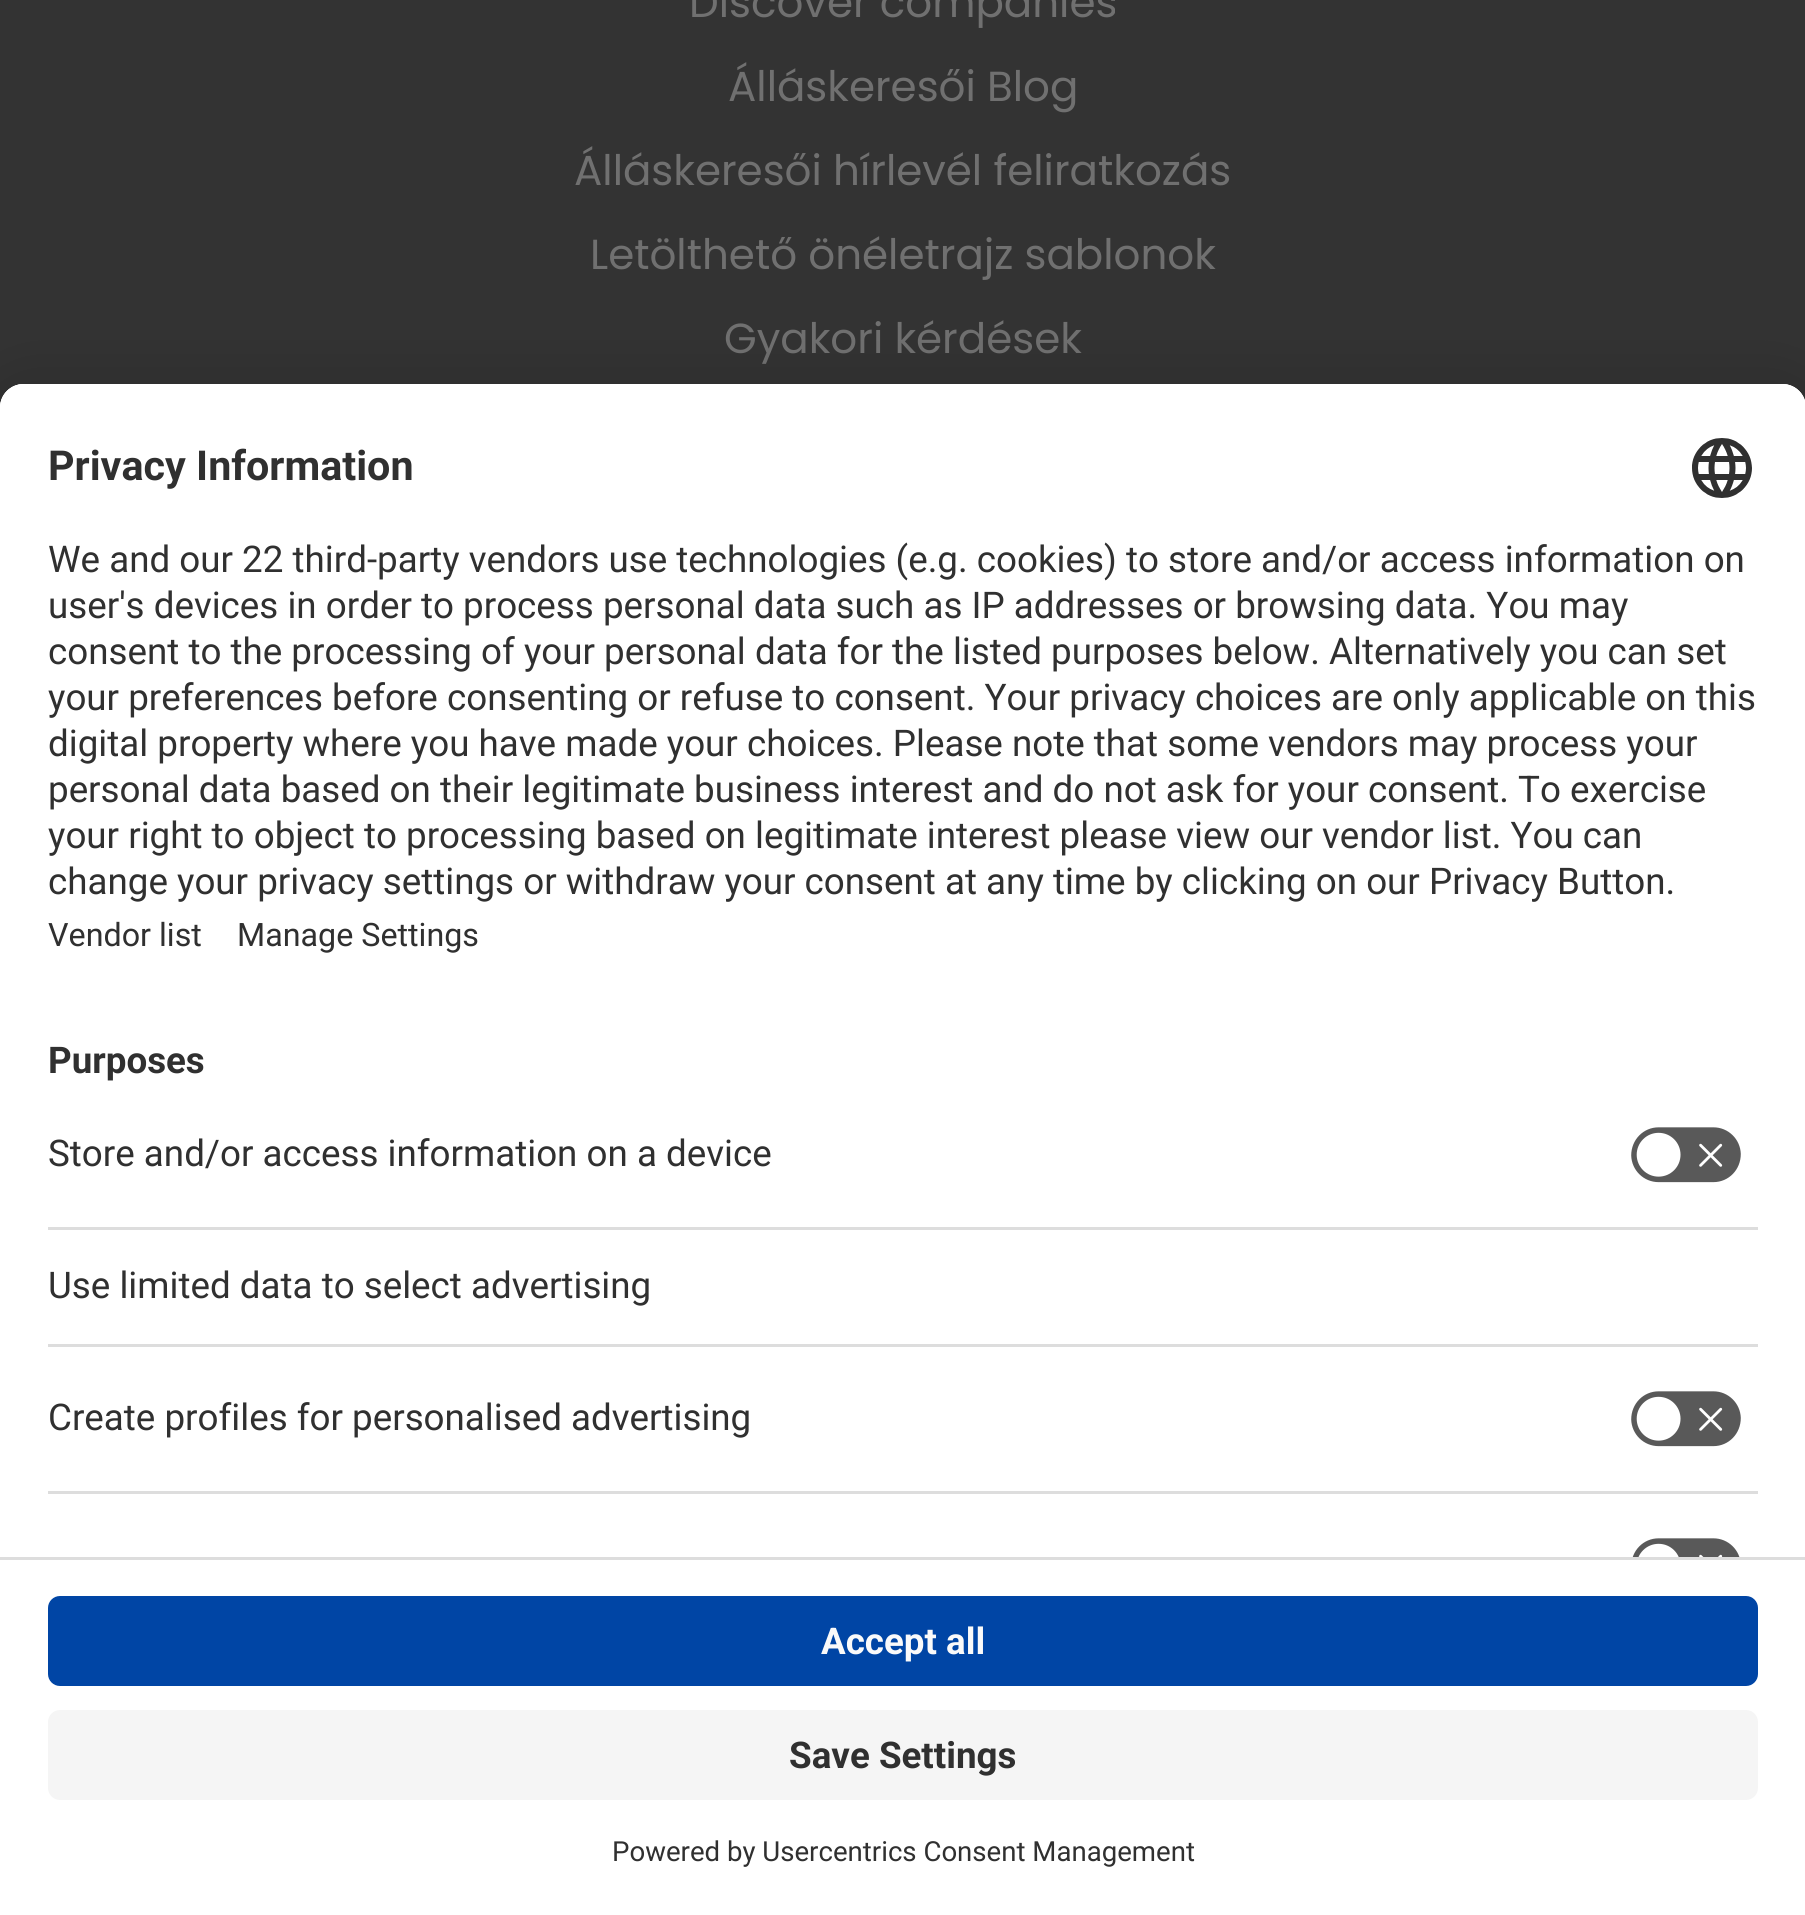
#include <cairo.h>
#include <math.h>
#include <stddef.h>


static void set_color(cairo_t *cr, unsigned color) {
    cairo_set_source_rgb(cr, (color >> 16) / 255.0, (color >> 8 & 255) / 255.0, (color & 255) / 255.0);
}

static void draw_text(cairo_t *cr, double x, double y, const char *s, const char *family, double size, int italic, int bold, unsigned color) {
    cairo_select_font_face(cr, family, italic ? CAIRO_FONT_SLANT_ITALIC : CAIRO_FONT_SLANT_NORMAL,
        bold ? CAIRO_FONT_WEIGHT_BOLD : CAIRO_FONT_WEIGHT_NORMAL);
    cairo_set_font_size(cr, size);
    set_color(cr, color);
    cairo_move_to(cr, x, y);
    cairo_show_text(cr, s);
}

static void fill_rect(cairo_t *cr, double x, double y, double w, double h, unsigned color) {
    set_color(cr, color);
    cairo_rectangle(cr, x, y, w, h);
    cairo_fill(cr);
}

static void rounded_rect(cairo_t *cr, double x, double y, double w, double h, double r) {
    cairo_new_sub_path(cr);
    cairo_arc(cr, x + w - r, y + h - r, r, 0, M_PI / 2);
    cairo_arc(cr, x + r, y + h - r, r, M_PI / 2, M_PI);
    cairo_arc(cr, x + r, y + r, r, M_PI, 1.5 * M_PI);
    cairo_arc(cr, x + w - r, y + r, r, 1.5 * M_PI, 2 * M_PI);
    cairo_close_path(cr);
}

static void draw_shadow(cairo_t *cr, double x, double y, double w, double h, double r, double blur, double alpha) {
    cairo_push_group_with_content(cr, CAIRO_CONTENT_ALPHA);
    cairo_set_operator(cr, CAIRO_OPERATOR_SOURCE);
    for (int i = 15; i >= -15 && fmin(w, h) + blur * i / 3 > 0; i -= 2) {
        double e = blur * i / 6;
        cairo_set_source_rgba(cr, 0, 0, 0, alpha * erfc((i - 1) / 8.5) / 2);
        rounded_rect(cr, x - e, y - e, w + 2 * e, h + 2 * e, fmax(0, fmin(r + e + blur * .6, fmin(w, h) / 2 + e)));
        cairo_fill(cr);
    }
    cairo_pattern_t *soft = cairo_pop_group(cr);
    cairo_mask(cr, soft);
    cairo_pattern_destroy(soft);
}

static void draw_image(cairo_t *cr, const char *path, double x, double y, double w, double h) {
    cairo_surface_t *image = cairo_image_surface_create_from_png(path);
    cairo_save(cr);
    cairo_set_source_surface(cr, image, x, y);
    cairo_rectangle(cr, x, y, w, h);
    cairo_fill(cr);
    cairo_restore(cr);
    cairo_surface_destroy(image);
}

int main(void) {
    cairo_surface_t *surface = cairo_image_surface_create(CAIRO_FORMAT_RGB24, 1805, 1915);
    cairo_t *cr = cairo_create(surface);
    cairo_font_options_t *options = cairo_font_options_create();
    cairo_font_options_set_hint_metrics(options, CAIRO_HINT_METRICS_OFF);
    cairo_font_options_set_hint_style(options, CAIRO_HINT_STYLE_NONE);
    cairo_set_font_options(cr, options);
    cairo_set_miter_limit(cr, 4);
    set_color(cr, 0x333333);
    cairo_paint(cr);
    draw_text(cr, 689, 17, "Discover companies", "Poppins", 42, 0, 0, 0x707070);
    draw_text(cr, 728, 101, "Álláskeresői Blog", "Poppins", 42, 0, 0, 0x707070);
    draw_text(cr, 574, 185, "Álláskeresői hírlevél feliratkozás", "Poppins", 42, 0, 0, 0x707070);
    draw_text(cr, 590, 269, "Letölthető önéletrajz sablonok", "Poppins", 42, 0, 0, 0x707070);
    draw_text(cr, 724, 353, "Gyakori kérdések", "Poppins", 42, 0, 0, 0x707070);
    set_color(cr, 0x000000);
    draw_shadow(cr, 0, 399, 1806, 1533, 24, 39, 0.22);
    set_color(cr, 0xFFFFFF);
    cairo_new_path(cr);
    cairo_move_to(cr, 24, 384);
    cairo_line_to(cr, 1782, 384);
    cairo_curve_to(cr, 1795.5, 384, 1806, 394.5, 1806, 408);
    cairo_line_to(cr, 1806, 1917);
    cairo_line_to(cr, 0, 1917);
    cairo_line_to(cr, 0, 408);
    cairo_curve_to(cr, 0, 394.5, 10.5, 384, 24, 384);
    cairo_close_path(cr);
    cairo_fill(cr);
    cairo_new_path(cr);
    cairo_move_to(cr, 24, 384);
    cairo_line_to(cr, 1782, 384);
    cairo_curve_to(cr, 1795.5, 384, 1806, 394.5, 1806, 408);
    cairo_line_to(cr, 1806, 1557);
    cairo_line_to(cr, 0, 1557);
    cairo_line_to(cr, 0, 408);
    cairo_curve_to(cr, 0, 394.5, 10.5, 384, 24, 384);
    cairo_close_path(cr);
    cairo_fill(cr);
    cairo_new_path(cr);
    cairo_move_to(cr, 24, 384);
    cairo_line_to(cr, 1782, 384);
    cairo_curve_to(cr, 1795.5, 384, 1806, 394.5, 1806, 408);
    cairo_line_to(cr, 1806, 1005);
    cairo_line_to(cr, 0, 1005);
    cairo_line_to(cr, 0, 408);
    cairo_curve_to(cr, 0, 394.5, 10.5, 384, 24, 384);
    cairo_close_path(cr);
    cairo_fill(cr);
    draw_text(cr, 48, 480, "Privacy Information", "Roboto", 41.25, 0, 1, 0x303030);
    draw_image(cr, "assets/img1.png", 1692, 438, 60, 60);
    draw_text(cr, 48, 572, "We and our 22 third-party vendors use technologies (e.g. cookies) to store and/or access information on", "Roboto", 36.75, 0, 0, 0x303030);
    draw_text(cr, 48, 618, "user's devices in order to process personal data such as IP addresses or browsing data. You may", "Roboto", 36.75, 0, 0, 0x303030);
    draw_text(cr, 48, 664, "consent to the processing of your personal data for the listed purposes below. Alternatively you can set", "Roboto", 36.75, 0, 0, 0x303030);
    draw_text(cr, 48, 710, "your preferences before consenting or refuse to consent. Your privacy choices are only applicable on this", "Roboto", 36.75, 0, 0, 0x303030);
    draw_text(cr, 48, 756, "digital property where you have made your choices. Please note that some vendors may process your", "Roboto", 36.75, 0, 0, 0x303030);
    draw_text(cr, 48, 802, "personal data based on their legitimate business interest and do not ask for your consent. To exercise", "Roboto", 36.75, 0, 0, 0x303030);
    draw_text(cr, 48, 848, "your right to object to processing based on legitimate interest please view our vendor list. You can", "Roboto", 36.75, 0, 0, 0x303030);
    draw_text(cr, 48, 894, "change your privacy settings or withdraw your consent at any time by clicking on our Privacy Button.", "Roboto", 36.75, 0, 0, 0x303030);
    draw_text(cr, 48, 946, "Vendor list", "Roboto", 32.25, 0, 0, 0x303030);
    draw_text(cr, 237, 946, "Manage Settings", "Roboto", 32.25, 0, 0, 0x303030);
    draw_text(cr, 48, 1073, "Purposes", "Roboto", 36.75, 0, 1, 0x303030);
    fill_rect(cr, 48, 1227, 1710, 3, 0xDDDDDD);
    draw_text(cr, 48, 1166, "Store and/or access information on a device", "Roboto", 36.75, 0, 0, 0x303030);
    draw_image(cr, "assets/img2.png", 1631, 1127, 110, 56);
    fill_rect(cr, 48, 1344, 1710, 3, 0xDDDDDD);
    draw_text(cr, 48, 1298, "Use limited data to select advertising", "Roboto", 36.75, 0, 0, 0x303030);
    fill_rect(cr, 48, 1491, 1710, 3, 0xDDDDDD);
    draw_text(cr, 48, 1430, "Create profiles for personalised advertising", "Roboto", 36.75, 0, 0, 0x303030);
    draw_image(cr, "assets/img2.png", 1631, 1391, 110, 56);
    draw_image(cr, "assets/img3.png", 1632, 1538, 108, 19);
    fill_rect(cr, 0, 1557, 1805, 3, 0xDDDDDD);
    set_color(cr, 0x0045A5);
    rounded_rect(cr, 48, 1596, 1710, 90, 12);
    cairo_fill(cr);
    draw_text(cr, 821, 1654, "Accept all", "Roboto", 36.75, 0, 1, 0xFAFAFA);
    set_color(cr, 0xF5F5F5);
    rounded_rect(cr, 48, 1710, 1710, 90, 12);
    cairo_fill(cr);
    draw_text(cr, 789, 1768, "Save Settings", "Roboto", 36.75, 0, 1, 0x303030);
    draw_text(cr, 612, 1861, "Powered by Usercentrics Consent Management", "Roboto", 27.6, 0, 0, 0x303030);
    cairo_surface_write_to_png(surface, "output.png");
    cairo_font_options_destroy(options);
    cairo_destroy(cr);
    cairo_surface_destroy(surface);
    return 0;
}
